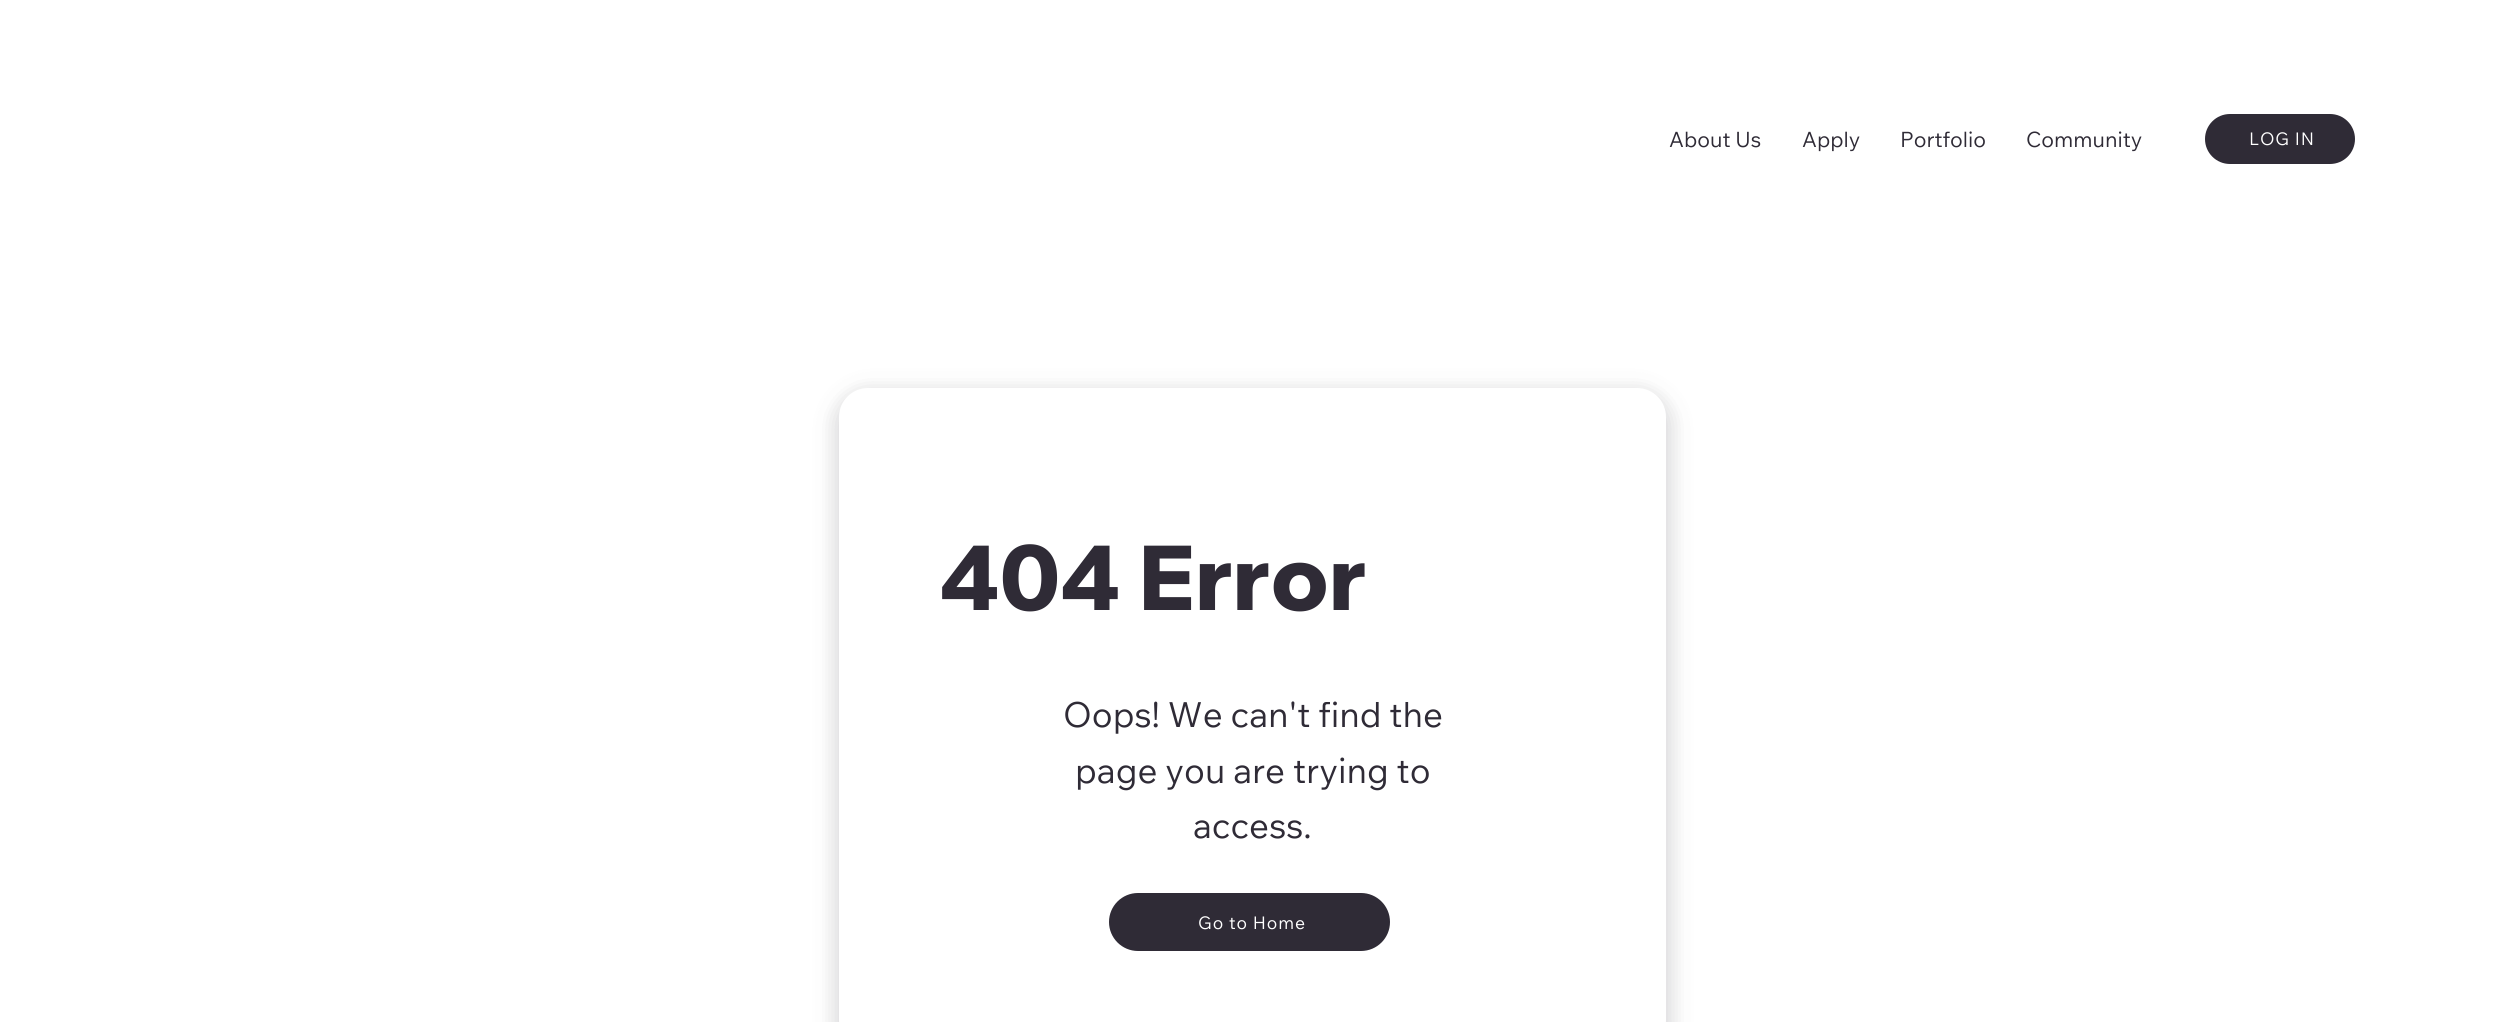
#include <cairo.h>
#include <math.h>
#include <stddef.h>


static void set_color(cairo_t *cr, unsigned color) {
    cairo_set_source_rgb(cr, (color >> 16) / 255.0, (color >> 8 & 255) / 255.0, (color & 255) / 255.0);
}

static void draw_text(cairo_t *cr, double x, double y, const char *s, const char *family, double size, int italic, int bold, unsigned color) {
    cairo_select_font_face(cr, family, italic ? CAIRO_FONT_SLANT_ITALIC : CAIRO_FONT_SLANT_NORMAL,
        bold ? CAIRO_FONT_WEIGHT_BOLD : CAIRO_FONT_WEIGHT_NORMAL);
    cairo_set_font_size(cr, size);
    set_color(cr, color);
    cairo_move_to(cr, x, y);
    cairo_show_text(cr, s);
}

static void draw_spaced(cairo_t *cr, double x, double y, const char *s, double letter, double word) {
    cairo_move_to(cr, x, y);
    while (*s) {
        char ch[5] = {0};
        int n = 0;
        do ch[n++] = *s++; while ((*s & 0xC0) == 0x80);
        cairo_show_text(cr, ch);
        cairo_rel_move_to(cr, letter + word * (*ch == ' '), 0);
    }
}

static void rounded_rect(cairo_t *cr, double x, double y, double w, double h, double r) {
    cairo_new_sub_path(cr);
    cairo_arc(cr, x + w - r, y + h - r, r, 0, M_PI / 2);
    cairo_arc(cr, x + r, y + h - r, r, M_PI / 2, M_PI);
    cairo_arc(cr, x + r, y + r, r, M_PI, 1.5 * M_PI);
    cairo_arc(cr, x + w - r, y + r, r, 1.5 * M_PI, 2 * M_PI);
    cairo_close_path(cr);
}

static void draw_shadow(cairo_t *cr, double x, double y, double w, double h, double r, double blur, double alpha) {
    cairo_push_group_with_content(cr, CAIRO_CONTENT_ALPHA);
    cairo_set_operator(cr, CAIRO_OPERATOR_SOURCE);
    for (int i = 15; i >= -15 && fmin(w, h) + blur * i / 3 > 0; i -= 2) {
        double e = blur * i / 6;
        cairo_set_source_rgba(cr, 0, 0, 0, alpha * erfc((i - 1) / 8.5) / 2);
        rounded_rect(cr, x - e, y - e, w + 2 * e, h + 2 * e, fmax(0, fmin(r + e + blur * .6, fmin(w, h) / 2 + e)));
        cairo_fill(cr);
    }
    cairo_pattern_t *soft = cairo_pop_group(cr);
    cairo_mask(cr, soft);
    cairo_pattern_destroy(soft);
}

int main(void) {
    cairo_surface_t *surface = cairo_image_surface_create(CAIRO_FORMAT_RGB24, 2505, 1022);
    cairo_t *cr = cairo_create(surface);
    cairo_font_options_t *options = cairo_font_options_create();
    cairo_font_options_set_hint_metrics(options, CAIRO_HINT_METRICS_OFF);
    cairo_font_options_set_hint_style(options, CAIRO_HINT_STYLE_NONE);
    cairo_set_font_options(cr, options);
    cairo_set_miter_limit(cr, 4);
    set_color(cr, 0xFFFFFF);
    cairo_paint(cr);
    draw_text(cr, 1669, 147, "About Us", "Wix Madefor Text", 21.25, 0, 0, 0x2F2B36);
    draw_text(cr, 1802, 147, "Apply", "Wix Madefor Text", 21.25, 0, 0, 0x2F2B36);
    draw_text(cr, 1900, 147, "Portfolio", "Wix Madefor Text", 21.25, 0, 0, 0x2F2B36);
    draw_text(cr, 2026, 147, "Community", "Wix Madefor Text", 21.25, 0, 0, 0x2F2B36);
    rounded_rect(cr, 2205, 114, 150, 50, 25);
    cairo_fill(cr);
    cairo_set_font_size(cr, 17.5);
    set_color(cr, 0xFFFFFF);
    draw_spaced(cr, 2249, 145, "LOG IN", 0.9, 0);
    set_color(cr, 0x2F2B36);
    draw_shadow(cr, 833, 389, 840, 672, 35, 9.5, 0.17);
    set_color(cr, 0xFFFFFF);
    rounded_rect(cr, 839, 388, 827, 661, 29);
    cairo_fill(cr);
    draw_text(cr, 939, 610, "404 Error", "Wix Madefor Display ExtraBold", 90, 0, 0, 0x2F2B36);
    draw_text(cr, 1063, 727, "Oops! We can't find the", "Wix Madefor Text", 34.75, 0, 0, 0x2F2B36);
    draw_text(cr, 1075, 783, "page you are trying to", "Wix Madefor Text", 34.75, 0, 0, 0x2F2B36);
    draw_text(cr, 1193, 838, "access.", "Wix Madefor Text", 34.75, 0, 0, 0x2F2B36);
    rounded_rect(cr, 1109, 893, 281, 58, 29);
    cairo_fill(cr);
    cairo_set_font_size(cr, 17.5);
    set_color(cr, 0xFFFFFF);
    draw_spaced(cr, 1198, 929, "Go to Home", 0.9, 0);
    cairo_surface_write_to_png(surface, "output.png");
    cairo_font_options_destroy(options);
    cairo_destroy(cr);
    cairo_surface_destroy(surface);
    return 0;
}
